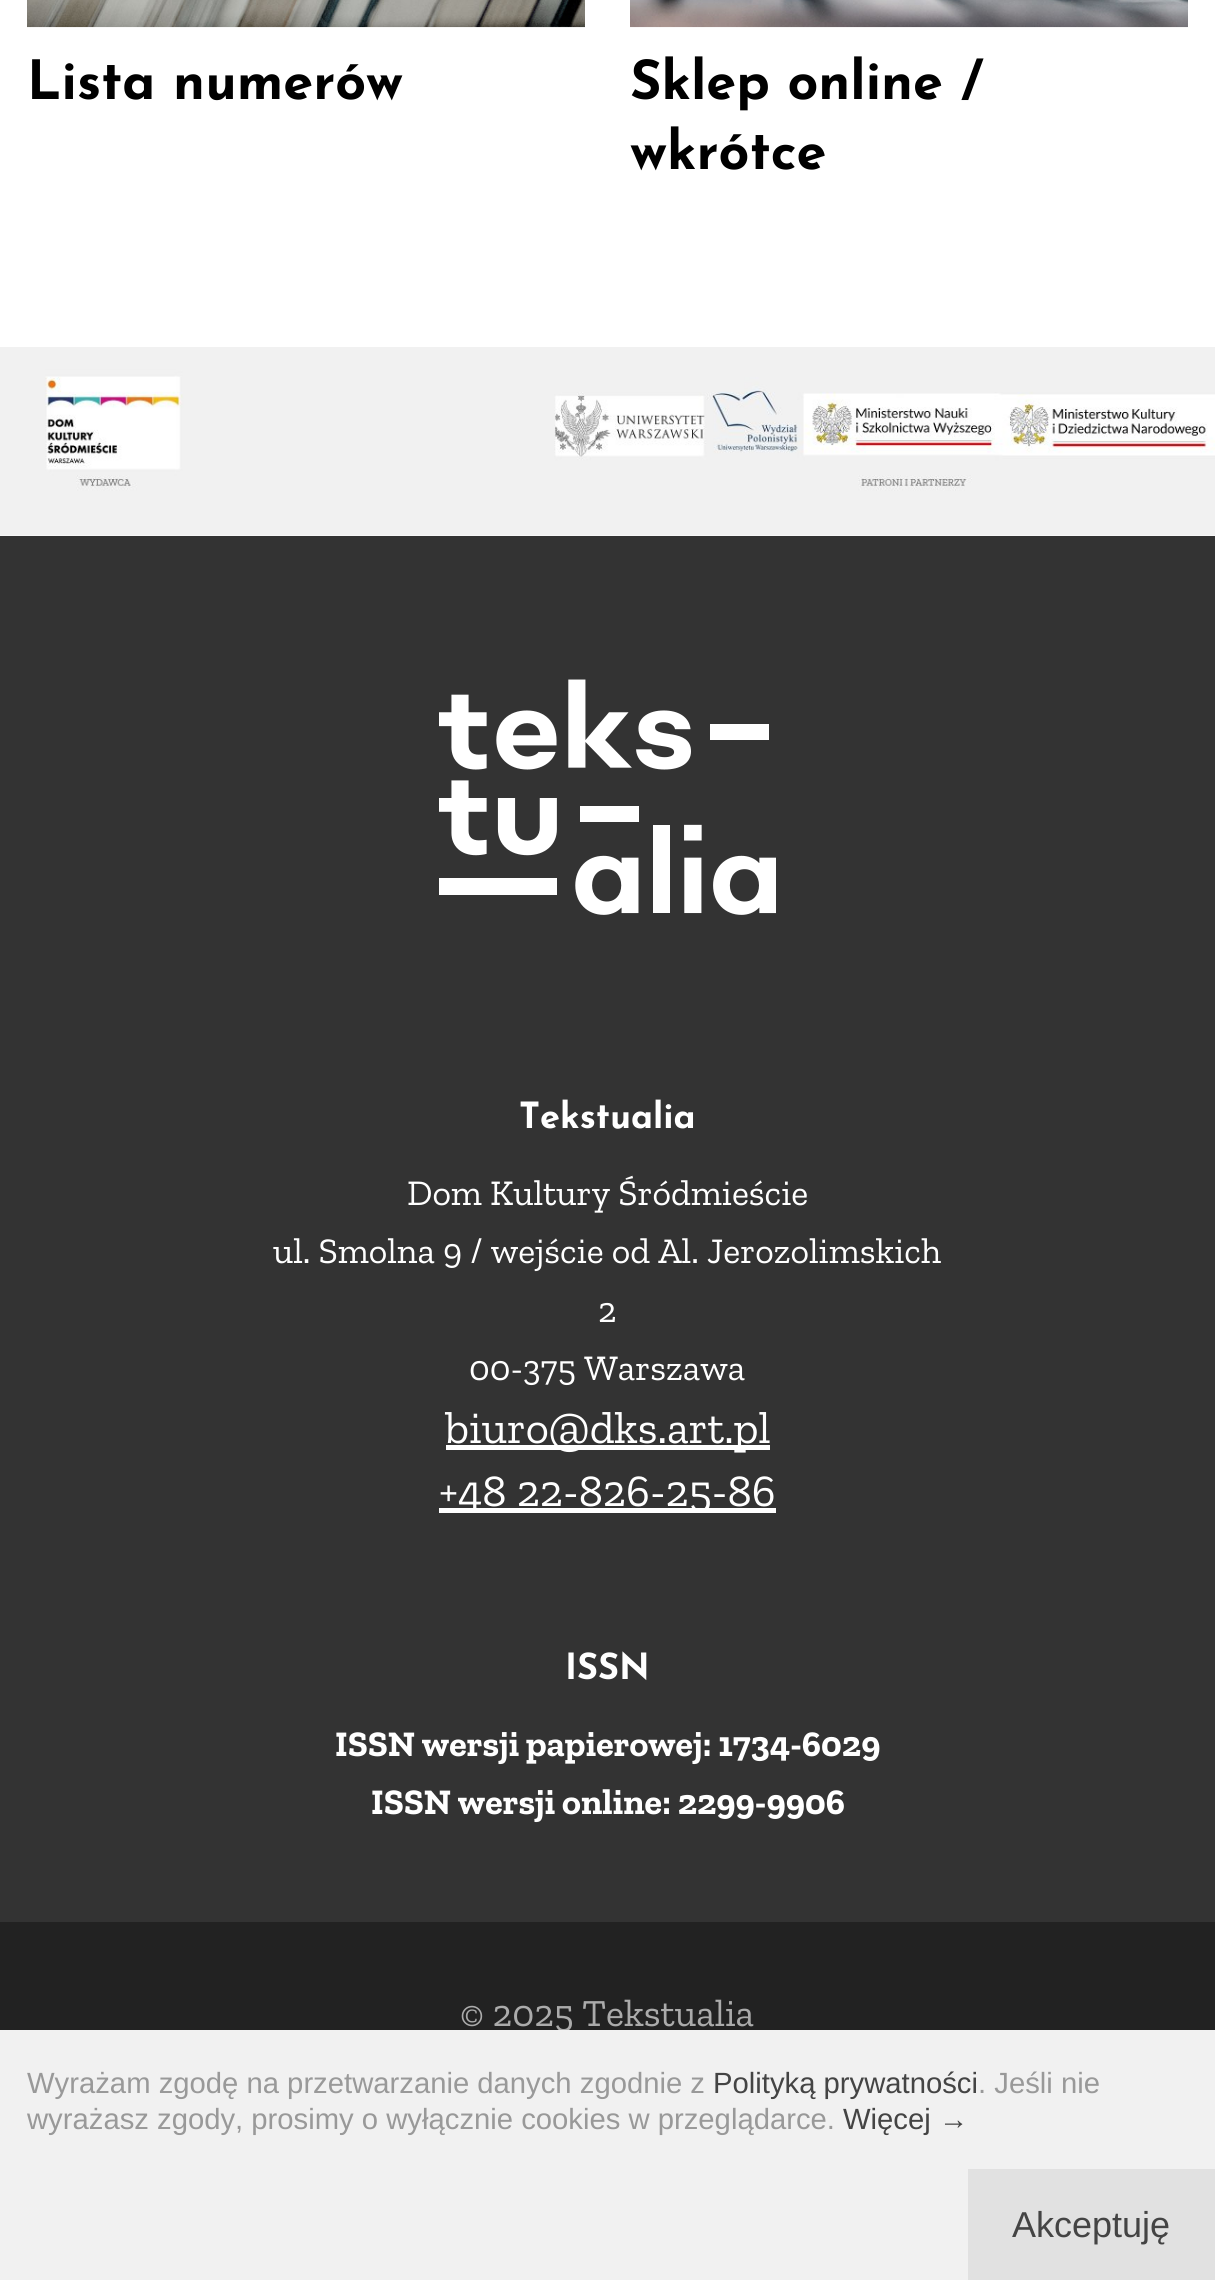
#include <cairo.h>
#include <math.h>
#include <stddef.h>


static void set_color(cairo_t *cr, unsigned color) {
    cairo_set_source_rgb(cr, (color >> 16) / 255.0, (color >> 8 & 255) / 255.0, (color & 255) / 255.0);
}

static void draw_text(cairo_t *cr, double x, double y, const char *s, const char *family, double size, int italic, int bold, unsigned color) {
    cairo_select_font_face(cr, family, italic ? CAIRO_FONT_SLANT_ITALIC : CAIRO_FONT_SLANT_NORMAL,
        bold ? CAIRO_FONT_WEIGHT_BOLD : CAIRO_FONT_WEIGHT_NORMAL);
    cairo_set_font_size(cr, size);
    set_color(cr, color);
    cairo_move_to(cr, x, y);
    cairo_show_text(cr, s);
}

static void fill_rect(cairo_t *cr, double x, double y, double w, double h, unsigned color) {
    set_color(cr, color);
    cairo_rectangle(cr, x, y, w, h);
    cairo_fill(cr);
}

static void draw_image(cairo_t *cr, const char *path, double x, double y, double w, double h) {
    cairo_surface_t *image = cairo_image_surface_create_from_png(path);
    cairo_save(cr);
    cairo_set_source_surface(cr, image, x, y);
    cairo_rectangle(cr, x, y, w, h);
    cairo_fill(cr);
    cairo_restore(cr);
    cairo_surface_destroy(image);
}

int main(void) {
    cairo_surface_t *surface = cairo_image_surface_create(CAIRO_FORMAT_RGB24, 1215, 2280);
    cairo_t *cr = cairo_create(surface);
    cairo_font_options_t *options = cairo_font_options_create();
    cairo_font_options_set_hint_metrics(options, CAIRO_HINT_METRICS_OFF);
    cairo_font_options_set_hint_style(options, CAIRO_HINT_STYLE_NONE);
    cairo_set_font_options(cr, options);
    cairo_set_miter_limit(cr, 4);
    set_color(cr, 0xFFFFFF);
    cairo_paint(cr);
    draw_image(cr, "assets/img1.png", 27, 0, 558, 28);
    draw_text(cr, 27, 99, "Lista numerów", "Josefin Sans", 54, 0, 1, 0x000000);
    draw_image(cr, "assets/img2.png", 630, 0, 558, 28);
    draw_text(cr, 630, 99, "Sklep online /", "Josefin Sans", 54, 0, 1, 0x000000);
    draw_text(cr, 630, 169, "wkrótce", "Josefin Sans", 54, 0, 1, 0x000000);
    draw_image(cr, "assets/img3.png", 0, 347, 1215, 189);
    fill_rect(cr, 0, 536, 1215, 1386, 0x333333);
    draw_image(cr, "assets/img4.png", 439, 679, 337, 236);
    draw_text(cr, 519, 1128, "Tekstualia", "Josefin Sans", 36, 0, 1, 0xFFFFFF);
    draw_text(cr, 407, 1205, "Dom Kultury Śródmieście", "Zilla Slab", 36, 0, 0, 0xFFFFFF);
    draw_text(cr, 273, 1263, "ul. Smolna 9 / wejście od Al. Jerozolimskich", "Zilla Slab", 36, 0, 0, 0xFFFFFF);
    draw_text(cr, 598, 1322, "2", "Zilla Slab", 36, 0, 0, 0xFFFFFF);
    draw_text(cr, 469, 1380, "00-375 Warszawa", "Zilla Slab", 36, 0, 0, 0xFFFFFF);
    fill_rect(cr, 446, 1445, 324, 5, 0xFFFFFF);
    draw_text(cr, 445, 1443, "biuro@dks.art.pl", "Zilla Slab", 45, 0, 0, 0xFFFFFF);
    fill_rect(cr, 439, 1508, 337, 5, 0xFFFFFF);
    draw_text(cr, 439, 1506, "+48 22-826-25-86", "Zilla Slab", 45, 0, 0, 0xFFFFFF);
    draw_text(cr, 565, 1679, "ISSN", "Josefin Sans", 36, 0, 1, 0xFFFFFF);
    draw_text(cr, 335, 1756, "ISSN wersji papierowej: 1734-6029", "Zilla Slab", 36, 0, 1, 0xFFFFFF);
    draw_text(cr, 371, 1814, "ISSN wersji online: 2299-9906", "Zilla Slab", 36, 0, 1, 0xFFFFFF);
    fill_rect(cr, 0, 1922, 1215, 108, 0x222222);
    draw_text(cr, 460, 2026, "© 2025 Tekstualia", "Zilla Slab", 38.25, 0, 0, 0xABABAB);
    fill_rect(cr, 0, 2030, 1215, 250, 0xF1F1F1);
    draw_text(cr, 27, 2093, "Wyrażam zgodę na przetwarzanie danych zgodnie z", "Liberation Sans", 29.25, 0, 0, 0x999999);
    draw_text(cr, 713, 2093, "Polityką prywatności", "Liberation Sans", 29.25, 0, 0, 0x444444);
    draw_text(cr, 978, 2093, ". Jeśli nie", "Liberation Sans", 29.25, 0, 0, 0x999999);
    draw_text(cr, 27, 2129, "wyrażasz zgody, prosimy o wyłącznie cookies w przeglądarce.", "Liberation Sans", 29.25, 0, 0, 0x999999);
    draw_text(cr, 843, 2129, "Więcej →", "Liberation Sans", 29.25, 0, 0, 0x444444);
    fill_rect(cr, 968, 2169, 247, 111, 0xE1E1E1);
    draw_text(cr, 1012, 2237, "Akceptuję", "Liberation Sans", 36, 0, 0, 0x444444);
    cairo_surface_write_to_png(surface, "output.png");
    cairo_font_options_destroy(options);
    cairo_destroy(cr);
    cairo_surface_destroy(surface);
    return 0;
}
